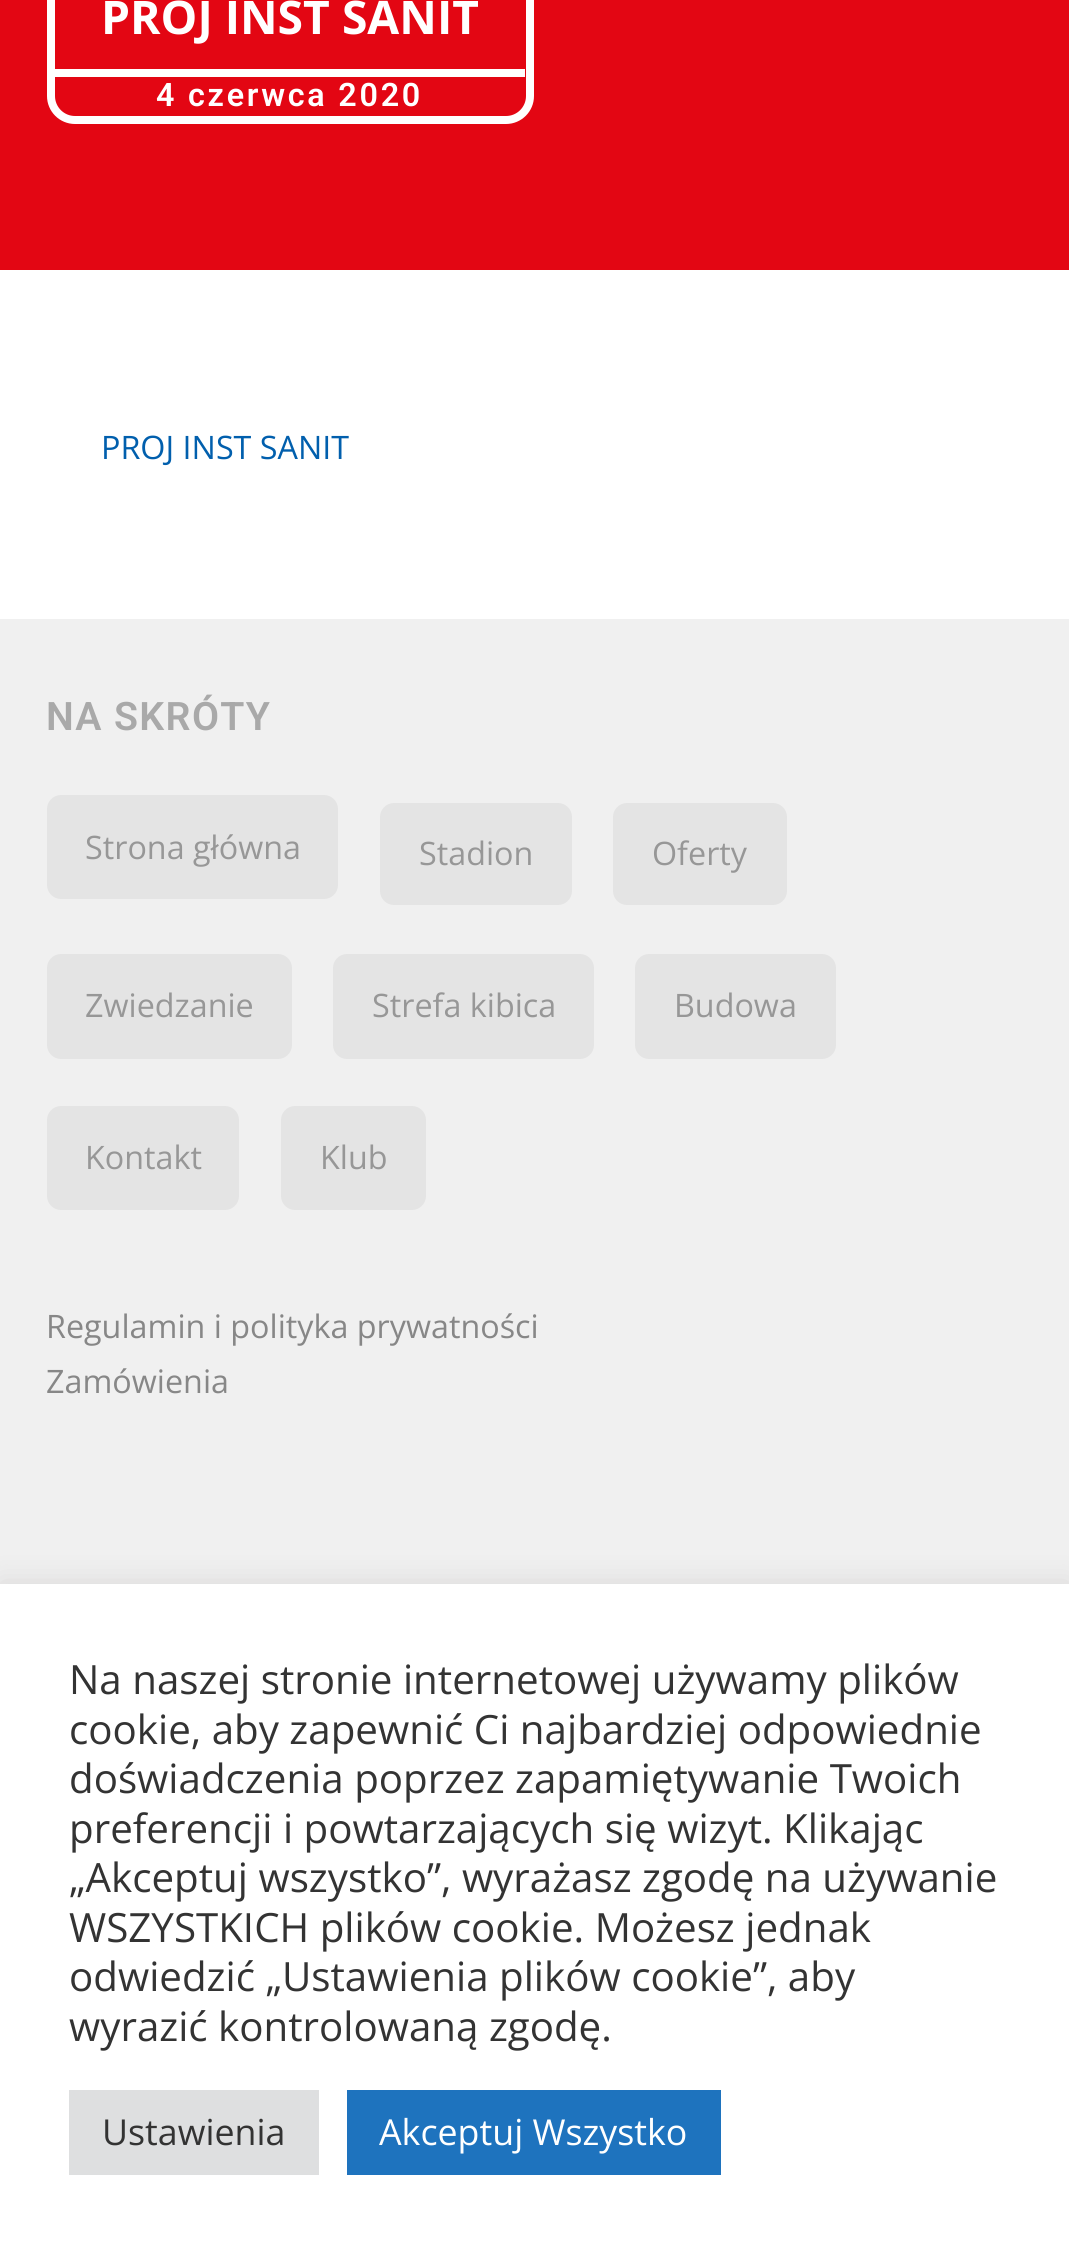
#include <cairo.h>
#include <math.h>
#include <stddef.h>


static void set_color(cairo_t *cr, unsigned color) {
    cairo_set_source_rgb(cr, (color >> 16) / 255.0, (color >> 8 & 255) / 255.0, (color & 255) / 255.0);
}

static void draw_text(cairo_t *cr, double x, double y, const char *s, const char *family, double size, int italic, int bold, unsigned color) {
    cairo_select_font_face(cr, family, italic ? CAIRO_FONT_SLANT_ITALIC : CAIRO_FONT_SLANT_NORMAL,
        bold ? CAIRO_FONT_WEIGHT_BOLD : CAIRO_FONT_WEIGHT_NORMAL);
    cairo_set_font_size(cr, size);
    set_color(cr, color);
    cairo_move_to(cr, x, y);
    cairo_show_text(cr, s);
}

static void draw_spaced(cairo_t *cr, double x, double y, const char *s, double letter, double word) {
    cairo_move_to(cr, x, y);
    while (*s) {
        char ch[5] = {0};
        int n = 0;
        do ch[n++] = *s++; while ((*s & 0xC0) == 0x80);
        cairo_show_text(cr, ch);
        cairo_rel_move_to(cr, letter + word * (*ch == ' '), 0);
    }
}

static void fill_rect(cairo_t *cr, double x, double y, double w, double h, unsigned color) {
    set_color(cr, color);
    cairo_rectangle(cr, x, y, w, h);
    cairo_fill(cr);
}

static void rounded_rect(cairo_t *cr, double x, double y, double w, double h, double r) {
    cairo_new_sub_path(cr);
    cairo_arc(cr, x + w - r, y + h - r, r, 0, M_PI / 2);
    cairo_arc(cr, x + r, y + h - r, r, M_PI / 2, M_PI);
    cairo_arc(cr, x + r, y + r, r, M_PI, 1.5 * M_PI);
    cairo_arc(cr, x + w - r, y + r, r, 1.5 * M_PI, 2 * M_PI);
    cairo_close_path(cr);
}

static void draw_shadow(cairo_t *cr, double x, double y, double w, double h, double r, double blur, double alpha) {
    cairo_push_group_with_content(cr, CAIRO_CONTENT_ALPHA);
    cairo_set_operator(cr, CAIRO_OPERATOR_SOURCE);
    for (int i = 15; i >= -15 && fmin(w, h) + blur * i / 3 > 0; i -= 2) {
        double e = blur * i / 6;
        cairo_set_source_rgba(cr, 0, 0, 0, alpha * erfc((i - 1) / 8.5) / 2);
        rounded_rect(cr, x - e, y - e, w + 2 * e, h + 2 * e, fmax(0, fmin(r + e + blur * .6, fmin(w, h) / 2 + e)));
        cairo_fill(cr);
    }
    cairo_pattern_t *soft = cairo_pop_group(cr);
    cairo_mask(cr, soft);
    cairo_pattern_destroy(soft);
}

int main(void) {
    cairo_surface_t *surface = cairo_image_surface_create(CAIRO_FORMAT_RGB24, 1069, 2257);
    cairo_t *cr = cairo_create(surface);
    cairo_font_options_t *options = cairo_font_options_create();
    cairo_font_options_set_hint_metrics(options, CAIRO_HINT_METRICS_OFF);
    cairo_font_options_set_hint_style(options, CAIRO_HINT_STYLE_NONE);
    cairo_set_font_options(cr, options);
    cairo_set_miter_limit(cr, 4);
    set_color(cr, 0xFFFFFF);
    cairo_paint(cr);
    fill_rect(cr, 0, 0, 1069, 270, 0xE30613);
    rounded_rect(cr, 51, -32, 479, 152, 24);
    set_color(cr, 0xFFFFFF);
    cairo_set_line_width(cr, 8);
    cairo_stroke(cr);
    draw_text(cr, 101, 34, "PROJ INST SANIT", "Open Sans", 46.25, 0, 1, 0xFFFFFF);
    fill_rect(cr, 55, 69, 470, 8, 0xFFFFFF);
    cairo_select_font_face(cr, "Roboto SemiBold", CAIRO_FONT_SLANT_NORMAL, CAIRO_FONT_WEIGHT_NORMAL);
    cairo_set_font_size(cr, 32.3);
    draw_spaced(cr, 156, 106, "4 czerwca 2020", 2.75, 0);
    draw_text(cr, 101, 459, "PROJ INST SANIT", "Open Sans", 32.3, 0, 0, 0x015FAD);
    fill_rect(cr, 0, 619, 1069, 965, 0xF0F0F0);
    cairo_select_font_face(cr, "Roboto SemiBold", CAIRO_FONT_SLANT_NORMAL, CAIRO_FONT_WEIGHT_NORMAL);
    cairo_set_font_size(cr, 39.25);
    set_color(cr, 0xA9A9A9);
    draw_spaced(cr, 46, 730, "NA SKRÓTY", 1.4, 0);
    set_color(cr, 0xE4E4E4);
    rounded_rect(cr, 47, 795, 291, 104, 14);
    cairo_fill(cr);
    draw_text(cr, 85, 859, "Strona główna", "Open Sans", 32.3, 0, 0, 0x979797);
    set_color(cr, 0xE4E4E4);
    rounded_rect(cr, 380, 803, 192, 102, 14);
    cairo_fill(cr);
    draw_text(cr, 419, 865, "Stadion", "Open Sans", 32.3, 0, 0, 0x979797);
    set_color(cr, 0xE4E4E4);
    rounded_rect(cr, 613, 803, 174, 102, 14);
    cairo_fill(cr);
    draw_text(cr, 652, 865, "Oferty", "Open Sans", 32.3, 0, 0, 0x979797);
    set_color(cr, 0xE4E4E4);
    rounded_rect(cr, 47, 954, 245, 105, 14);
    cairo_fill(cr);
    draw_text(cr, 85, 1017, "Zwiedzanie", "Open Sans", 32.3, 0, 0, 0x979797);
    set_color(cr, 0xE4E4E4);
    rounded_rect(cr, 333, 954, 261, 105, 14);
    cairo_fill(cr);
    draw_text(cr, 372, 1017, "Strefa kibica", "Open Sans", 32.3, 0, 0, 0x979797);
    set_color(cr, 0xE4E4E4);
    rounded_rect(cr, 635, 954, 201, 105, 14);
    cairo_fill(cr);
    draw_text(cr, 674, 1017, "Budowa", "Open Sans", 32.3, 0, 0, 0x979797);
    set_color(cr, 0xE4E4E4);
    rounded_rect(cr, 47, 1106, 192, 104, 14);
    cairo_fill(cr);
    draw_text(cr, 85, 1169, "Kontakt", "Open Sans", 32.3, 0, 0, 0x979797);
    set_color(cr, 0xE4E4E4);
    rounded_rect(cr, 281, 1106, 145, 104, 14);
    cairo_fill(cr);
    draw_text(cr, 320, 1169, "Klub", "Open Sans", 32.3, 0, 0, 0x979797);
    draw_text(cr, 46, 1338, "Regulamin i polityka prywatności", "Open Sans", 32.3, 0, 0, 0x878787);
    draw_text(cr, 46, 1393, "Zamówienia", "Open Sans", 32.3, 0, 0, 0x878787);
    set_color(cr, 0xACABAB);
    draw_shadow(cr, 0, 1581, 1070, 674, 0, 14, 0.3);
    fill_rect(cr, 0, 1584, 1069, 673, 0xFFFFFF);
    draw_text(cr, 69, 1694, "Na naszej stronie internetowej używamy plików", "Open Sans", 40.3, 0, 0, 0x333333);
    draw_text(cr, 69, 1744, "cookie, aby zapewnić Ci najbardziej odpowiednie", "Open Sans", 40.3, 0, 0, 0x333333);
    draw_text(cr, 69, 1793, "doświadczenia poprzez zapamiętywanie Twoich", "Open Sans", 40.3, 0, 0, 0x333333);
    draw_text(cr, 69, 1843, "preferencji i powtarzających się wizyt. Klikając", "Open Sans", 40.3, 0, 0, 0x333333);
    draw_text(cr, 69, 1892, "„Akceptuj wszystko”, wyrażasz zgodę na używanie", "Open Sans", 40.3, 0, 0, 0x333333);
    draw_text(cr, 69, 1942, "WSZYSTKICH plików cookie. Możesz jednak", "Open Sans", 40.3, 0, 0, 0x333333);
    draw_text(cr, 69, 1991, "odwiedzić „Ustawienia plików cookie”, aby", "Open Sans", 40.3, 0, 0, 0x333333);
    draw_text(cr, 69, 2041, "wyrazić kontrolowaną zgodę.", "Open Sans", 40.3, 0, 0, 0x333333);
    fill_rect(cr, 69, 2090, 250, 85, 0xDEDFE0);
    draw_text(cr, 102, 2145, "Ustawienia", "Open Sans", 35.75, 0, 0, 0x333333);
    fill_rect(cr, 347, 2090, 374, 85, 0x1E73BE);
    draw_text(cr, 379, 2145, "Akceptuj Wszystko", "Open Sans", 35.75, 0, 0, 0xFFFFFF);
    cairo_surface_write_to_png(surface, "output.png");
    cairo_font_options_destroy(options);
    cairo_destroy(cr);
    cairo_surface_destroy(surface);
    return 0;
}
